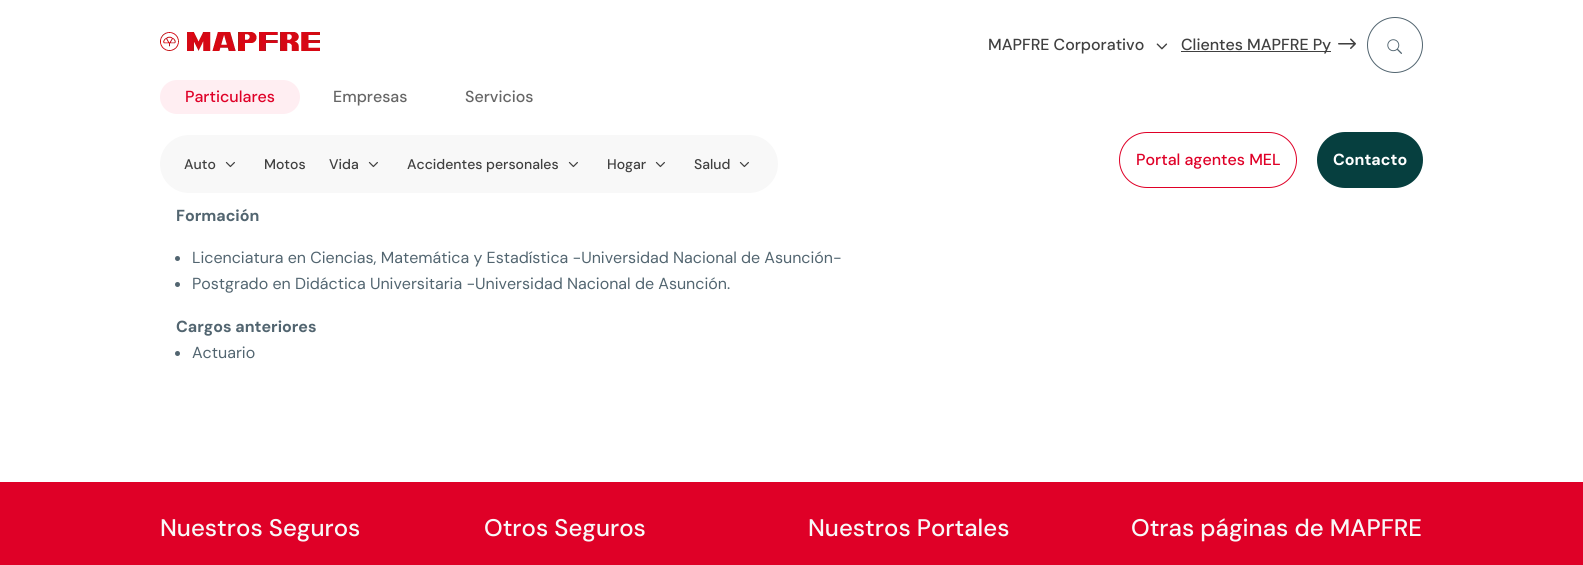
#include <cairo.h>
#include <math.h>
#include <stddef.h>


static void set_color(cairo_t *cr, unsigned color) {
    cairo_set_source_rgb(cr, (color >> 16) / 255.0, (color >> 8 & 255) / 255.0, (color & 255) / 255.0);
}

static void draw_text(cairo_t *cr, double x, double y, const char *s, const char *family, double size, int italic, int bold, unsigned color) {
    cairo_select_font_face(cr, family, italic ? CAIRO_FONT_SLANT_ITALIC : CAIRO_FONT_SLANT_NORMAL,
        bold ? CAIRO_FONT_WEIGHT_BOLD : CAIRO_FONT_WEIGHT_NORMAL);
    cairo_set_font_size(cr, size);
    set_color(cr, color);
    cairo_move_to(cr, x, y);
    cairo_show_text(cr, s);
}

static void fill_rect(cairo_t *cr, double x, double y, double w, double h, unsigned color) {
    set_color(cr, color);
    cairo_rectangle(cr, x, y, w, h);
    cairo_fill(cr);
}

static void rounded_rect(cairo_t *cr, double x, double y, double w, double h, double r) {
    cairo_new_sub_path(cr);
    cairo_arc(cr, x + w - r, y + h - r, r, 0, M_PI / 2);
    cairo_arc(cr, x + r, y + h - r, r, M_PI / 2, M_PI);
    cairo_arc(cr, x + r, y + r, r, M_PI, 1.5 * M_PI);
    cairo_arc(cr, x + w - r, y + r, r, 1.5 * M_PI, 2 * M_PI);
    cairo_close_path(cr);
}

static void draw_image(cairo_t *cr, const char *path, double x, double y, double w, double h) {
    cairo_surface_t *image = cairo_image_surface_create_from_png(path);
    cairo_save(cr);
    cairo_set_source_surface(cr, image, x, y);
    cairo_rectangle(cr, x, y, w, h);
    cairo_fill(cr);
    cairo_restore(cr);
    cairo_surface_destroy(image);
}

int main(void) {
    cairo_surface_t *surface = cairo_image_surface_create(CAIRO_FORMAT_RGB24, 1583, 565);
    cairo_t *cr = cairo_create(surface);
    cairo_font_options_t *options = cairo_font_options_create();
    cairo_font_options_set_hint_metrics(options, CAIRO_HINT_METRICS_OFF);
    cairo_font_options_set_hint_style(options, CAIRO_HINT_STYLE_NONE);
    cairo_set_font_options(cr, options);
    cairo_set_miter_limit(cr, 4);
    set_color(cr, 0xFFFFFF);
    cairo_paint(cr);
    set_color(cr, 0xFFEEF2);
    rounded_rect(cr, 160, 80, 140, 34, 17);
    cairo_fill(cr);
    draw_text(cr, 185, 102, "Particulares", "DM Sans Medium", 16, 0, 0, 0xDF0027);
    set_color(cr, 0xF8F8F8);
    rounded_rect(cr, 160, 135, 618, 58, 29);
    cairo_fill(cr);
    draw_text(cr, 184, 169, "Auto", "DM Sans Medium", 14, 0, 0, 0x404040);
    draw_image(cr, "assets/img1.png", 225, 161, 10, 7);
    draw_text(cr, 264, 169, "Motos", "DM Sans Medium", 14, 0, 0, 0x404040);
    draw_text(cr, 329, 169, "Vida", "DM Sans Medium", 14, 0, 0, 0x404040);
    draw_image(cr, "assets/img1.png", 368, 161, 10, 7);
    draw_text(cr, 407, 169, "Accidentes personales", "DM Sans Medium", 14, 0, 0, 0x404040);
    draw_image(cr, "assets/img1.png", 568, 161, 10, 7);
    draw_text(cr, 607, 169, "Hogar", "DM Sans Medium", 14, 0, 0, 0x404040);
    draw_image(cr, "assets/img1.png", 655, 161, 10, 7);
    draw_text(cr, 694, 169, "Salud", "DM Sans Medium", 14, 0, 0, 0x404040);
    draw_image(cr, "assets/img1.png", 739, 161, 10, 7);
    draw_text(cr, 333, 102, "Empresas", "DM Sans Medium", 16, 0, 0, 0x666666);
    draw_text(cr, 465, 102, "Servicios", "DM Sans Medium", 16, 0, 0, 0x666666);
    draw_image(cr, "assets/img2.png", 160, 32, 160, 19);
    cairo_arc(cr, 1395, 45, 27.5, 0, 2 * M_PI);
    set_color(cr, 0x526570);
    cairo_set_line_width(cr, 1);
    cairo_stroke(cr);
    draw_image(cr, "assets/img3.png", 1387, 39, 15, 15);
    draw_text(cr, 988, 50, "MAPFRE Corporativo", "DM Sans Medium", 16, 0, 0, 0x404040);
    draw_image(cr, "assets/img4.png", 1156, 43, 12, 7);
    fill_rect(cr, 1181, 51, 150, 1, 0x404040);
    draw_text(cr, 1181, 50, "Clientes MAPFRE Py", "DM Sans Medium", 16, 0, 0, 0x404040);
    draw_image(cr, "assets/img5.png", 1338, 38, 18, 11);
    rounded_rect(cr, 1119.5, 132.5, 177, 55, 27.5);
    set_color(cr, 0xDF0027);
    cairo_stroke(cr);
    draw_text(cr, 1136, 165, "Portal agentes MEL", "DM Sans Medium", 16, 0, 0, 0xDF0027);
    set_color(cr, 0x063F3F);
    rounded_rect(cr, 1317, 132, 106, 56, 28);
    cairo_fill(cr);
    draw_text(cr, 1333, 165, "Contacto", "DM Sans", 16, 0, 1, 0xFFFFFF);
    draw_text(cr, 176, 221, "Formación", "DM Sans", 16, 0, 1, 0x526570);
    cairo_new_path(cr);
    cairo_arc(cr, 177.5, 258.5, 2.5, 0, 2 * M_PI);
    cairo_fill(cr);
    draw_text(cr, 192, 263, "Licenciatura en Ciencias, Matemática y Estadística -Universidad Nacional de Asunción-", "DM Sans", 16, 0, 0, 0x526570);
    cairo_new_path(cr);
    cairo_arc(cr, 177.5, 284.5, 2.5, 0, 2 * M_PI);
    cairo_fill(cr);
    draw_text(cr, 192, 289, "Postgrado en Didáctica Universitaria -Universidad Nacional de Asunción.", "DM Sans", 16, 0, 0, 0x526570);
    draw_text(cr, 176, 332, "Cargos anteriores", "DM Sans", 16, 0, 1, 0x526570);
    cairo_new_path(cr);
    cairo_arc(cr, 177.5, 353.5, 2.5, 0, 2 * M_PI);
    cairo_fill(cr);
    draw_text(cr, 192, 358, "Actuario", "DM Sans", 16, 0, 0, 0x526570);
    fill_rect(cr, 0, 482, 1583, 83, 0xDF0027);
    draw_text(cr, 160, 536, "Nuestros Seguros", "DM Sans Medium", 24, 0, 0, 0xF8F8F8);
    draw_text(cr, 484, 536, "Otros Seguros", "DM Sans Medium", 24, 0, 0, 0xF8F8F8);
    draw_text(cr, 808, 536, "Nuestros Portales", "DM Sans Medium", 24, 0, 0, 0xF8F8F8);
    draw_text(cr, 1131, 536, "Otras páginas de MAPFRE", "DM Sans Medium", 24, 0, 0, 0xF8F8F8);
    cairo_surface_write_to_png(surface, "output.png");
    cairo_font_options_destroy(options);
    cairo_destroy(cr);
    cairo_surface_destroy(surface);
    return 0;
}
